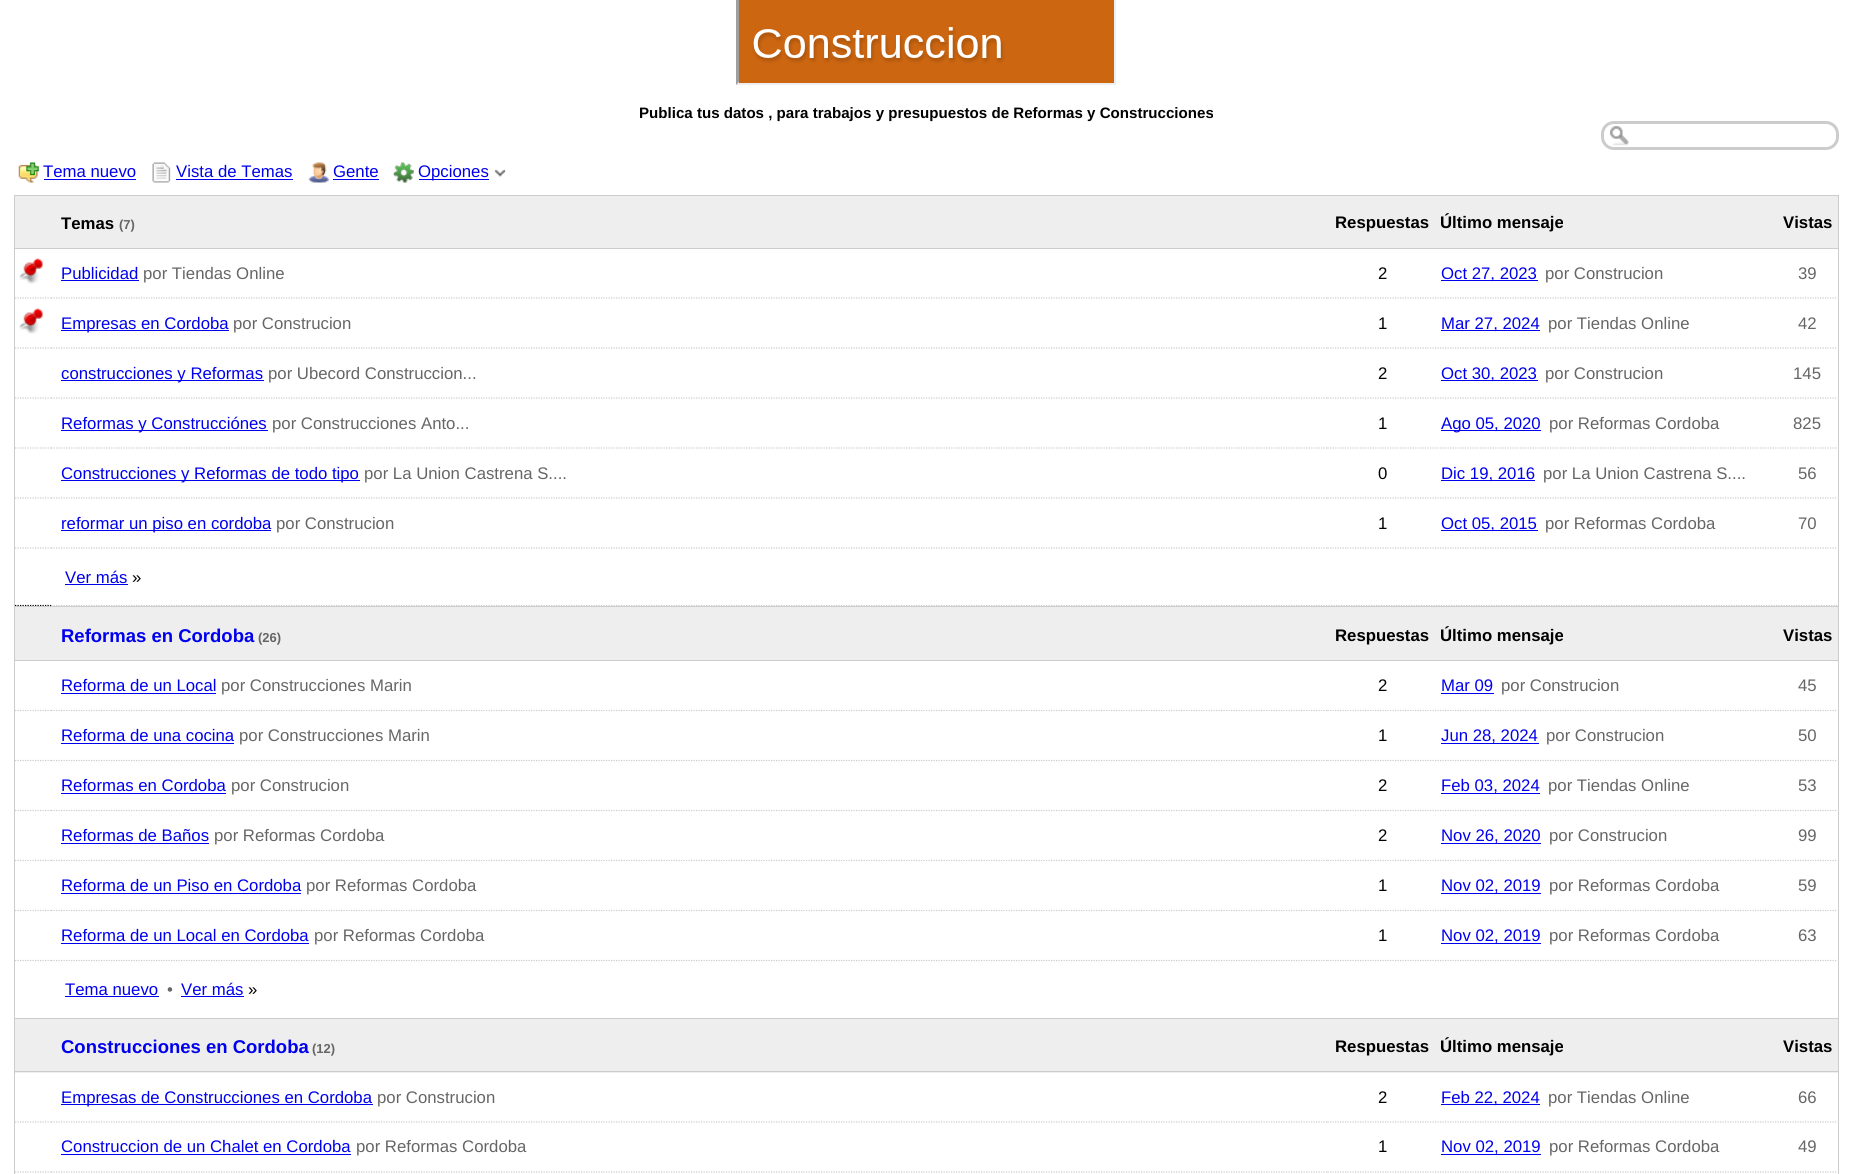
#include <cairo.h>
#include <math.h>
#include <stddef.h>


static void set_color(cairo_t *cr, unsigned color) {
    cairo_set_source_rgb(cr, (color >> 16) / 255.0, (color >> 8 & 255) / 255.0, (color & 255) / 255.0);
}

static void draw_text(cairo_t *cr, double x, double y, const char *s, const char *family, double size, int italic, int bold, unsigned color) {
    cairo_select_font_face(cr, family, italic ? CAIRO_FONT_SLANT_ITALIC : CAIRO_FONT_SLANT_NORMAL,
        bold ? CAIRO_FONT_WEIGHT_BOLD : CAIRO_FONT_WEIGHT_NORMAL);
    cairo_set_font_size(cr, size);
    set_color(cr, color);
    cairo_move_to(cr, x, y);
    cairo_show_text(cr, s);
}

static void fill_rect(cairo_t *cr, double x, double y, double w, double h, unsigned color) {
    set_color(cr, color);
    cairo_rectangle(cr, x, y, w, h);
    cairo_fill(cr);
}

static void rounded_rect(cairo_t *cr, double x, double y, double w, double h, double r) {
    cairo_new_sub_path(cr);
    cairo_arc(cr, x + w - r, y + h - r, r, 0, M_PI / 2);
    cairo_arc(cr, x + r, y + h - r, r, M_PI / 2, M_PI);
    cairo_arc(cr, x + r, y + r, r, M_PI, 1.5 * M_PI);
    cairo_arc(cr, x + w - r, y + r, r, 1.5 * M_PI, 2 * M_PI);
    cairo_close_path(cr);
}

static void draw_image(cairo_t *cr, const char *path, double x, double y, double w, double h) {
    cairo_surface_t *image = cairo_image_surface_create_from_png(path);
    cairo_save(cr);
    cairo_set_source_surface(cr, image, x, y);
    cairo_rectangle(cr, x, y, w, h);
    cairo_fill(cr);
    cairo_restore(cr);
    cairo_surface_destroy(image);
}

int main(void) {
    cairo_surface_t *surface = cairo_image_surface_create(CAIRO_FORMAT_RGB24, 1852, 1174);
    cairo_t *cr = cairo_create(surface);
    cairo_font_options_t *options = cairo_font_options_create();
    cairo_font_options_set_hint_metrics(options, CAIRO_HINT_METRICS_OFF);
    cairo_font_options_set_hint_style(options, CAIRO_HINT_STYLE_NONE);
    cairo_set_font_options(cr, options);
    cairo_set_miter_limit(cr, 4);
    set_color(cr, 0xFFFFFF);
    cairo_paint(cr);
    set_color(cr, 0xEEEEEE);
    cairo_new_path(cr);
    cairo_move_to(cr, 1116, -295);
    cairo_line_to(cr, 1116, 85);
    cairo_line_to(cr, 1114, 82);
    cairo_line_to(cr, 1114, -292);
    cairo_close_path(cr);
    cairo_fill(cr);
    cairo_new_path(cr);
    cairo_move_to(cr, 1116, 85);
    cairo_line_to(cr, 736, 85);
    cairo_line_to(cr, 739, 82);
    cairo_line_to(cr, 1114, 82);
    cairo_close_path(cr);
    cairo_fill(cr);
    set_color(cr, 0x9F9F9F);
    cairo_new_path(cr);
    cairo_move_to(cr, 736, 85);
    cairo_line_to(cr, 736, -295);
    cairo_line_to(cr, 739, -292);
    cairo_line_to(cr, 739, 82);
    cairo_close_path(cr);
    cairo_fill(cr);
    draw_image(cr, "assets/img1.png", 739, 0, 375, 83);
    draw_text(cr, 639, 118, "Publica tus datos , para trabajos y presupuestos de Reformas y Construcciones", "Liberation Sans", 15.1, 0, 1, 0x000000);
    draw_image(cr, "assets/img2.png", 1610, 126, 19, 20);
    rounded_rect(cr, 1602.5, 122.5, 235, 26, 11.5);
    set_color(cr, 0xCCCCCC);
    cairo_set_line_width(cr, 3);
    cairo_stroke(cr);
    draw_image(cr, "assets/img3.png", 18, 162, 21, 21);
    draw_text(cr, 43, 177, "Tema nuevo", "Liberation Sans", 16.75, 0, 0, 0x0000EE);
    fill_rect(cr, 44, 179, 92, 1, 0x0000EE);
    draw_image(cr, "assets/img4.png", 152, 162, 19, 21);
    draw_text(cr, 176, 177, "Vista de Temas", "Liberation Sans", 16.75, 0, 0, 0x0000EE);
    fill_rect(cr, 176, 179, 117, 1, 0x0000EE);
    draw_image(cr, "assets/img5.png", 308, 162, 21, 21);
    draw_text(cr, 333, 177, "Gente", "Liberation Sans", 16.75, 0, 0, 0x0000EE);
    fill_rect(cr, 333, 179, 46, 1, 0x0000EE);
    draw_image(cr, "assets/img6.png", 393, 162, 21, 21);
    fill_rect(cr, 419, 179, 70, 1, 0x0000EE);
    draw_text(cr, 418, 177, "Opciones", "Liberation Sans", 16.75, 0, 0, 0x0000EE);
    draw_image(cr, "assets/img7.png", 494, 169, 12, 8);
    cairo_rectangle(cr, 14.5, 195.5, 1824, 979);
    set_color(cr, 0xCCCCCC);
    cairo_set_line_width(cr, 1);
    cairo_stroke(cr);
    fill_rect(cr, 15, 196, 1823, 52, 0xEEEEEE);
    draw_text(cr, 61, 229, "Temas", "Liberation Sans", 16.75, 0, 1, 0x000000);
    draw_text(cr, 119, 229, "(7)", "Liberation Sans", 13, 0, 1, 0x666666);
    draw_text(cr, 1335, 228, "Respuestas", "Liberation Sans", 16.75, 0, 1, 0x000000);
    draw_text(cr, 1440, 228, "Último mensaje", "Liberation Sans", 16.75, 0, 1, 0x000000);
    draw_text(cr, 1783, 228, "Vistas", "Liberation Sans", 16.75, 0, 1, 0x000000);
    fill_rect(cr, 15, 248, 1823, 1, 0xCCCCCC);
    cairo_new_path(cr);
    cairo_move_to(cr, 15, 298);
    cairo_line_to(cr, 51, 298);
    cairo_set_line_width(cr, 1.2);
    cairo_set_dash(cr, (double[]){1.25, 1.25}, 2, 0);
    cairo_stroke(cr);
    draw_image(cr, "assets/img8.png", 19, 258, 24, 26);
    cairo_new_path(cr);
    cairo_move_to(cr, 51, 298);
    cairo_line_to(cr, 1327.5, 298);
    cairo_stroke(cr);
    draw_text(cr, 61, 279, "Publicidad", "Liberation Sans", 16.75, 0, 0, 0x0000EE);
    fill_rect(cr, 61, 280, 78, 1, 0x0000EE);
    draw_text(cr, 143, 279, "por Tiendas Online", "Liberation Sans", 16.75, 0, 0, 0x666666);
    cairo_new_path(cr);
    cairo_move_to(cr, 1327.5, 298);
    cairo_line_to(cr, 1437.5, 298);
    set_color(cr, 0xCCCCCC);
    cairo_stroke(cr);
    draw_text(cr, 1378, 279, "2", "Liberation Sans", 16.75, 0, 0, 0x000000);
    cairo_new_path(cr);
    cairo_move_to(cr, 1437.5, 298);
    cairo_line_to(cr, 1777.5, 298);
    set_color(cr, 0xCCCCCC);
    cairo_stroke(cr);
    fill_rect(cr, 1441, 280, 97, 1, 0x0000EE);
    draw_text(cr, 1441, 279, "Oct 27, 2023", "Liberation Sans", 16.75, 0, 0, 0x0000EE);
    draw_text(cr, 1545, 279, "por Construcion", "Liberation Sans", 16.75, 0, 0, 0x666666);
    cairo_new_path(cr);
    cairo_move_to(cr, 1777.5, 298);
    cairo_line_to(cr, 1837.5, 298);
    set_color(cr, 0xCCCCCC);
    cairo_stroke(cr);
    draw_text(cr, 1798, 279, "39", "Liberation Sans", 16.75, 0, 0, 0x666666);
    cairo_new_path(cr);
    cairo_move_to(cr, 15, 348);
    cairo_line_to(cr, 51, 348);
    set_color(cr, 0xCCCCCC);
    cairo_stroke(cr);
    draw_image(cr, "assets/img8.png", 19, 308, 24, 26);
    cairo_new_path(cr);
    cairo_move_to(cr, 51, 348);
    cairo_line_to(cr, 1327.5, 348);
    cairo_stroke(cr);
    fill_rect(cr, 61, 330, 168, 1, 0x0000EE);
    draw_text(cr, 61, 329, "Empresas en Cordoba", "Liberation Sans", 16.75, 0, 0, 0x0000EE);
    draw_text(cr, 233, 329, "por Construcion", "Liberation Sans", 16.75, 0, 0, 0x666666);
    cairo_new_path(cr);
    cairo_move_to(cr, 1327.5, 348);
    cairo_line_to(cr, 1437.5, 348);
    set_color(cr, 0xCCCCCC);
    cairo_stroke(cr);
    draw_text(cr, 1378, 329, "1", "Liberation Sans", 16.75, 0, 0, 0x000000);
    cairo_new_path(cr);
    cairo_move_to(cr, 1437.5, 348);
    cairo_line_to(cr, 1777.5, 348);
    set_color(cr, 0xCCCCCC);
    cairo_stroke(cr);
    fill_rect(cr, 1441, 330, 99, 1, 0x0000EE);
    draw_text(cr, 1441, 329, "Mar 27, 2024", "Liberation Sans", 16.75, 0, 0, 0x0000EE);
    draw_text(cr, 1548, 329, "por Tiendas Online", "Liberation Sans", 16.75, 0, 0, 0x666666);
    cairo_new_path(cr);
    cairo_move_to(cr, 1777.5, 348);
    cairo_line_to(cr, 1837.5, 348);
    set_color(cr, 0xCCCCCC);
    cairo_stroke(cr);
    draw_text(cr, 1798, 329, "42", "Liberation Sans", 16.75, 0, 0, 0x666666);
    cairo_new_path(cr);
    cairo_move_to(cr, 51, 398);
    cairo_line_to(cr, 1327.5, 398);
    set_color(cr, 0xCCCCCC);
    cairo_stroke(cr);
    fill_rect(cr, 61, 380, 203, 1, 0x0000EE);
    draw_text(cr, 61, 379, "construcciones y Reformas", "Liberation Sans", 16.75, 0, 0, 0x0000EE);
    draw_text(cr, 268, 379, "por Ubecord Construccion...", "Liberation Sans", 16.75, 0, 0, 0x666666);
    cairo_new_path(cr);
    cairo_move_to(cr, 1327.5, 398);
    cairo_line_to(cr, 1437.5, 398);
    set_color(cr, 0xCCCCCC);
    cairo_stroke(cr);
    draw_text(cr, 1378, 379, "2", "Liberation Sans", 16.75, 0, 0, 0x000000);
    cairo_new_path(cr);
    cairo_move_to(cr, 1437.5, 398);
    cairo_line_to(cr, 1777.5, 398);
    set_color(cr, 0xCCCCCC);
    cairo_stroke(cr);
    fill_rect(cr, 1441, 380, 97, 1, 0x0000EE);
    draw_text(cr, 1441, 379, "Oct 30, 2023", "Liberation Sans", 16.75, 0, 0, 0x0000EE);
    draw_text(cr, 1545, 379, "por Construcion", "Liberation Sans", 16.75, 0, 0, 0x666666);
    cairo_new_path(cr);
    cairo_move_to(cr, 1777.5, 398);
    cairo_line_to(cr, 1837.5, 398);
    set_color(cr, 0xCCCCCC);
    cairo_stroke(cr);
    draw_text(cr, 1793, 379, "145", "Liberation Sans", 16.75, 0, 0, 0x666666);
    cairo_new_path(cr);
    cairo_move_to(cr, 15, 398);
    cairo_line_to(cr, 51, 398);
    set_color(cr, 0xCCCCCC);
    cairo_stroke(cr);
    cairo_new_path(cr);
    cairo_move_to(cr, 51, 448);
    cairo_line_to(cr, 1327.5, 448);
    cairo_stroke(cr);
    fill_rect(cr, 61, 430, 207, 1, 0x0000EE);
    draw_text(cr, 61, 429, "Reformas y Construcciónes", "Liberation Sans", 16.75, 0, 0, 0x0000EE);
    draw_text(cr, 272, 429, "por Construcciones Anto...", "Liberation Sans", 16.75, 0, 0, 0x666666);
    cairo_new_path(cr);
    cairo_move_to(cr, 1327.5, 448);
    cairo_line_to(cr, 1437.5, 448);
    set_color(cr, 0xCCCCCC);
    cairo_stroke(cr);
    draw_text(cr, 1378, 429, "1", "Liberation Sans", 16.75, 0, 0, 0x000000);
    cairo_new_path(cr);
    cairo_move_to(cr, 1437.5, 448);
    cairo_line_to(cr, 1777.5, 448);
    set_color(cr, 0xCCCCCC);
    cairo_stroke(cr);
    fill_rect(cr, 1441, 430, 100, 1, 0x0000EE);
    draw_text(cr, 1441, 429, "Ago 05, 2020", "Liberation Sans", 16.75, 0, 0, 0x0000EE);
    draw_text(cr, 1549, 429, "por Reformas Cordoba", "Liberation Sans", 16.75, 0, 0, 0x666666);
    cairo_new_path(cr);
    cairo_move_to(cr, 1777.5, 448);
    cairo_line_to(cr, 1837.5, 448);
    set_color(cr, 0xCCCCCC);
    cairo_stroke(cr);
    draw_text(cr, 1793, 429, "825", "Liberation Sans", 16.75, 0, 0, 0x666666);
    cairo_new_path(cr);
    cairo_move_to(cr, 15, 448);
    cairo_line_to(cr, 51, 448);
    set_color(cr, 0xCCCCCC);
    cairo_stroke(cr);
    cairo_new_path(cr);
    cairo_move_to(cr, 51, 498);
    cairo_line_to(cr, 1327.5, 498);
    cairo_stroke(cr);
    fill_rect(cr, 61, 480, 299, 1, 0x0000EE);
    draw_text(cr, 61, 479, "Construcciones y Reformas de todo tipo", "Liberation Sans", 16.75, 0, 0, 0x0000EE);
    draw_text(cr, 364, 479, "por La Union Castrena S....", "Liberation Sans", 16.75, 0, 0, 0x666666);
    cairo_new_path(cr);
    cairo_move_to(cr, 1327.5, 498);
    cairo_line_to(cr, 1437.5, 498);
    set_color(cr, 0xCCCCCC);
    cairo_stroke(cr);
    draw_text(cr, 1378, 479, "0", "Liberation Sans", 16.75, 0, 0, 0x000000);
    cairo_new_path(cr);
    cairo_move_to(cr, 1437.5, 498);
    cairo_line_to(cr, 1777.5, 498);
    set_color(cr, 0xCCCCCC);
    cairo_stroke(cr);
    fill_rect(cr, 1441, 480, 94, 1, 0x0000EE);
    draw_text(cr, 1441, 479, "Dic 19, 2016", "Liberation Sans", 16.75, 0, 0, 0x0000EE);
    draw_text(cr, 1543, 479, "por La Union Castrena S....", "Liberation Sans", 16.75, 0, 0, 0x666666);
    cairo_new_path(cr);
    cairo_move_to(cr, 1777.5, 498);
    cairo_line_to(cr, 1837.5, 498);
    set_color(cr, 0xCCCCCC);
    cairo_stroke(cr);
    draw_text(cr, 1798, 479, "56", "Liberation Sans", 16.75, 0, 0, 0x666666);
    cairo_new_path(cr);
    cairo_move_to(cr, 15, 498);
    cairo_line_to(cr, 51, 498);
    set_color(cr, 0xCCCCCC);
    cairo_stroke(cr);
    cairo_new_path(cr);
    cairo_move_to(cr, 51, 548);
    cairo_line_to(cr, 1327.5, 548);
    cairo_stroke(cr);
    fill_rect(cr, 61, 530, 210, 1, 0x0000EE);
    draw_text(cr, 61, 529, "reformar un piso en cordoba", "Liberation Sans", 16.75, 0, 0, 0x0000EE);
    draw_text(cr, 276, 529, "por Construcion", "Liberation Sans", 16.75, 0, 0, 0x666666);
    cairo_new_path(cr);
    cairo_move_to(cr, 1327.5, 548);
    cairo_line_to(cr, 1437.5, 548);
    set_color(cr, 0xCCCCCC);
    cairo_stroke(cr);
    draw_text(cr, 1378, 529, "1", "Liberation Sans", 16.75, 0, 0, 0x000000);
    cairo_new_path(cr);
    cairo_move_to(cr, 1437.5, 548);
    cairo_line_to(cr, 1777.5, 548);
    set_color(cr, 0xCCCCCC);
    cairo_stroke(cr);
    fill_rect(cr, 1441, 530, 97, 1, 0x0000EE);
    draw_text(cr, 1441, 529, "Oct 05, 2015", "Liberation Sans", 16.75, 0, 0, 0x0000EE);
    draw_text(cr, 1545, 529, "por Reformas Cordoba", "Liberation Sans", 16.75, 0, 0, 0x666666);
    cairo_new_path(cr);
    cairo_move_to(cr, 1777.5, 548);
    cairo_line_to(cr, 1837.5, 548);
    set_color(cr, 0xCCCCCC);
    cairo_stroke(cr);
    draw_text(cr, 1798, 529, "70", "Liberation Sans", 16.75, 0, 0, 0x666666);
    cairo_new_path(cr);
    cairo_move_to(cr, 15, 548);
    cairo_line_to(cr, 51, 548);
    set_color(cr, 0xCCCCCC);
    cairo_stroke(cr);
    cairo_new_path(cr);
    cairo_move_to(cr, 51, 605.5);
    cairo_line_to(cr, 1837.5, 605.5);
    cairo_stroke(cr);
    draw_text(cr, 65, 583, "Ver más", "Liberation Sans", 16.75, 0, 0, 0x0000EE);
    fill_rect(cr, 65, 584, 63, 1, 0x0000EE);
    draw_text(cr, 132, 583, "»", "Liberation Sans", 16.75, 0, 0, 0x000000);
    cairo_new_path(cr);
    cairo_move_to(cr, 15, 605.5);
    cairo_line_to(cr, 51, 605.5);
    cairo_stroke(cr);
    fill_rect(cr, 15, 607, 1823, 53, 0xEEEEEE);
    fill_rect(cr, 15, 606, 1823, 1, 0xCCCCCC);
    fill_rect(cr, 15, 660, 1823, 1, 0xCCCCCC);
    draw_text(cr, 61, 642, "Reformas en Cordoba", "Liberation Sans", 18.5, 0, 1, 0x0000EE);
    draw_text(cr, 258, 642, "(26)", "Liberation Sans", 13, 0, 1, 0x666666);
    draw_text(cr, 1335, 641, "Respuestas", "Liberation Sans", 16.75, 0, 1, 0x000000);
    draw_text(cr, 1440, 641, "Último mensaje", "Liberation Sans", 16.75, 0, 1, 0x000000);
    draw_text(cr, 1783, 641, "Vistas", "Liberation Sans", 16.75, 0, 1, 0x000000);
    cairo_new_path(cr);
    cairo_move_to(cr, 51, 710.5);
    cairo_line_to(cr, 1327.5, 710.5);
    set_color(cr, 0xCCCCCC);
    cairo_stroke(cr);
    draw_text(cr, 61, 691, "Reforma de un Local", "Liberation Sans", 16.75, 0, 0, 0x0000EE);
    fill_rect(cr, 61, 693, 155, 1, 0x0000EE);
    draw_text(cr, 221, 691, "por Construcciones Marin", "Liberation Sans", 16.75, 0, 0, 0x666666);
    cairo_new_path(cr);
    cairo_move_to(cr, 1327.5, 710.5);
    cairo_line_to(cr, 1437.5, 710.5);
    set_color(cr, 0xCCCCCC);
    cairo_stroke(cr);
    draw_text(cr, 1378, 691, "2", "Liberation Sans", 16.75, 0, 0, 0x000000);
    cairo_new_path(cr);
    cairo_move_to(cr, 1437.5, 710.5);
    cairo_line_to(cr, 1777.5, 710.5);
    set_color(cr, 0xCCCCCC);
    cairo_stroke(cr);
    draw_text(cr, 1441, 691, "Mar 09", "Liberation Sans", 16.75, 0, 0, 0x0000EE);
    fill_rect(cr, 1441, 693, 53, 1, 0x0000EE);
    draw_text(cr, 1501, 691, "por Construcion", "Liberation Sans", 16.75, 0, 0, 0x666666);
    cairo_new_path(cr);
    cairo_move_to(cr, 1777.5, 710.5);
    cairo_line_to(cr, 1837.5, 710.5);
    set_color(cr, 0xCCCCCC);
    cairo_stroke(cr);
    draw_text(cr, 1798, 691, "45", "Liberation Sans", 16.75, 0, 0, 0x666666);
    cairo_new_path(cr);
    cairo_move_to(cr, 15, 710.5);
    cairo_line_to(cr, 51, 710.5);
    set_color(cr, 0xCCCCCC);
    cairo_stroke(cr);
    cairo_new_path(cr);
    cairo_move_to(cr, 51, 760.5);
    cairo_line_to(cr, 1327.5, 760.5);
    cairo_stroke(cr);
    draw_text(cr, 61, 741, "Reforma de una cocina", "Liberation Sans", 16.75, 0, 0, 0x0000EE);
    fill_rect(cr, 61, 743, 173, 1, 0x0000EE);
    draw_text(cr, 239, 741, "por Construcciones Marin", "Liberation Sans", 16.75, 0, 0, 0x666666);
    cairo_new_path(cr);
    cairo_move_to(cr, 1327.5, 760.5);
    cairo_line_to(cr, 1437.5, 760.5);
    set_color(cr, 0xCCCCCC);
    cairo_stroke(cr);
    draw_text(cr, 1378, 741, "1", "Liberation Sans", 16.75, 0, 0, 0x000000);
    cairo_new_path(cr);
    cairo_move_to(cr, 1437.5, 760.5);
    cairo_line_to(cr, 1777.5, 760.5);
    set_color(cr, 0xCCCCCC);
    cairo_stroke(cr);
    fill_rect(cr, 1441, 743, 98, 1, 0x0000EE);
    draw_text(cr, 1441, 741, "Jun 28, 2024", "Liberation Sans", 16.75, 0, 0, 0x0000EE);
    draw_text(cr, 1546, 741, "por Construcion", "Liberation Sans", 16.75, 0, 0, 0x666666);
    cairo_new_path(cr);
    cairo_move_to(cr, 1777.5, 760.5);
    cairo_line_to(cr, 1837.5, 760.5);
    set_color(cr, 0xCCCCCC);
    cairo_stroke(cr);
    draw_text(cr, 1798, 741, "50", "Liberation Sans", 16.75, 0, 0, 0x666666);
    cairo_new_path(cr);
    cairo_move_to(cr, 15, 760.5);
    cairo_line_to(cr, 51, 760.5);
    set_color(cr, 0xCCCCCC);
    cairo_stroke(cr);
    cairo_new_path(cr);
    cairo_move_to(cr, 51, 810.5);
    cairo_line_to(cr, 1327.5, 810.5);
    cairo_stroke(cr);
    draw_text(cr, 61, 791, "Reformas en Cordoba", "Liberation Sans", 16.75, 0, 0, 0x0000EE);
    fill_rect(cr, 61, 793, 165, 1, 0x0000EE);
    draw_text(cr, 231, 791, "por Construcion", "Liberation Sans", 16.75, 0, 0, 0x666666);
    cairo_new_path(cr);
    cairo_move_to(cr, 1327.5, 810.5);
    cairo_line_to(cr, 1437.5, 810.5);
    set_color(cr, 0xCCCCCC);
    cairo_stroke(cr);
    draw_text(cr, 1378, 791, "2", "Liberation Sans", 16.75, 0, 0, 0x000000);
    cairo_new_path(cr);
    cairo_move_to(cr, 1437.5, 810.5);
    cairo_line_to(cr, 1777.5, 810.5);
    set_color(cr, 0xCCCCCC);
    cairo_stroke(cr);
    fill_rect(cr, 1441, 793, 99, 1, 0x0000EE);
    draw_text(cr, 1441, 791, "Feb 03, 2024", "Liberation Sans", 16.75, 0, 0, 0x0000EE);
    draw_text(cr, 1548, 791, "por Tiendas Online", "Liberation Sans", 16.75, 0, 0, 0x666666);
    cairo_new_path(cr);
    cairo_move_to(cr, 1777.5, 810.5);
    cairo_line_to(cr, 1837.5, 810.5);
    set_color(cr, 0xCCCCCC);
    cairo_stroke(cr);
    draw_text(cr, 1798, 791, "53", "Liberation Sans", 16.75, 0, 0, 0x666666);
    cairo_new_path(cr);
    cairo_move_to(cr, 15, 810.5);
    cairo_line_to(cr, 51, 810.5);
    set_color(cr, 0xCCCCCC);
    cairo_stroke(cr);
    cairo_new_path(cr);
    cairo_move_to(cr, 51, 860.5);
    cairo_line_to(cr, 1327.5, 860.5);
    cairo_stroke(cr);
    draw_text(cr, 61, 841, "Reformas de Baños", "Liberation Sans", 16.75, 0, 0, 0x0000EE);
    fill_rect(cr, 61, 843, 148, 1, 0x0000EE);
    draw_text(cr, 214, 841, "por Reformas Cordoba", "Liberation Sans", 16.75, 0, 0, 0x666666);
    cairo_new_path(cr);
    cairo_move_to(cr, 1327.5, 860.5);
    cairo_line_to(cr, 1437.5, 860.5);
    set_color(cr, 0xCCCCCC);
    cairo_stroke(cr);
    draw_text(cr, 1378, 841, "2", "Liberation Sans", 16.75, 0, 0, 0x000000);
    cairo_new_path(cr);
    cairo_move_to(cr, 1437.5, 860.5);
    cairo_line_to(cr, 1777.5, 860.5);
    set_color(cr, 0xCCCCCC);
    cairo_stroke(cr);
    fill_rect(cr, 1441, 843, 100, 1, 0x0000EE);
    draw_text(cr, 1441, 841, "Nov 26, 2020", "Liberation Sans", 16.75, 0, 0, 0x0000EE);
    draw_text(cr, 1549, 841, "por Construcion", "Liberation Sans", 16.75, 0, 0, 0x666666);
    cairo_new_path(cr);
    cairo_move_to(cr, 1777.5, 860.5);
    cairo_line_to(cr, 1837.5, 860.5);
    set_color(cr, 0xCCCCCC);
    cairo_stroke(cr);
    draw_text(cr, 1798, 841, "99", "Liberation Sans", 16.75, 0, 0, 0x666666);
    cairo_new_path(cr);
    cairo_move_to(cr, 15, 860.5);
    cairo_line_to(cr, 51, 860.5);
    set_color(cr, 0xCCCCCC);
    cairo_stroke(cr);
    cairo_new_path(cr);
    cairo_move_to(cr, 51, 910.5);
    cairo_line_to(cr, 1327.5, 910.5);
    cairo_stroke(cr);
    draw_text(cr, 61, 891, "Reforma de un Piso en Cordoba", "Liberation Sans", 16.75, 0, 0, 0x0000EE);
    fill_rect(cr, 61, 893, 240, 1, 0x0000EE);
    draw_text(cr, 306, 891, "por Reformas Cordoba", "Liberation Sans", 16.75, 0, 0, 0x666666);
    cairo_new_path(cr);
    cairo_move_to(cr, 1327.5, 910.5);
    cairo_line_to(cr, 1437.5, 910.5);
    set_color(cr, 0xCCCCCC);
    cairo_stroke(cr);
    draw_text(cr, 1378, 891, "1", "Liberation Sans", 16.75, 0, 0, 0x000000);
    cairo_new_path(cr);
    cairo_move_to(cr, 1437.5, 910.5);
    cairo_line_to(cr, 1777.5, 910.5);
    set_color(cr, 0xCCCCCC);
    cairo_stroke(cr);
    fill_rect(cr, 1441, 893, 100, 1, 0x0000EE);
    draw_text(cr, 1441, 891, "Nov 02, 2019", "Liberation Sans", 16.75, 0, 0, 0x0000EE);
    draw_text(cr, 1549, 891, "por Reformas Cordoba", "Liberation Sans", 16.75, 0, 0, 0x666666);
    cairo_new_path(cr);
    cairo_move_to(cr, 1777.5, 910.5);
    cairo_line_to(cr, 1837.5, 910.5);
    set_color(cr, 0xCCCCCC);
    cairo_stroke(cr);
    draw_text(cr, 1798, 891, "59", "Liberation Sans", 16.75, 0, 0, 0x666666);
    cairo_new_path(cr);
    cairo_move_to(cr, 15, 910.5);
    cairo_line_to(cr, 51, 910.5);
    set_color(cr, 0xCCCCCC);
    cairo_stroke(cr);
    cairo_new_path(cr);
    cairo_move_to(cr, 51, 960.5);
    cairo_line_to(cr, 1327.5, 960.5);
    cairo_stroke(cr);
    draw_text(cr, 61, 941, "Reforma de un Local en Cordoba", "Liberation Sans", 16.75, 0, 0, 0x0000EE);
    fill_rect(cr, 61, 943, 248, 1, 0x0000EE);
    draw_text(cr, 314, 941, "por Reformas Cordoba", "Liberation Sans", 16.75, 0, 0, 0x666666);
    cairo_new_path(cr);
    cairo_move_to(cr, 1327.5, 960.5);
    cairo_line_to(cr, 1437.5, 960.5);
    set_color(cr, 0xCCCCCC);
    cairo_stroke(cr);
    draw_text(cr, 1378, 941, "1", "Liberation Sans", 16.75, 0, 0, 0x000000);
    cairo_new_path(cr);
    cairo_move_to(cr, 1437.5, 960.5);
    cairo_line_to(cr, 1777.5, 960.5);
    set_color(cr, 0xCCCCCC);
    cairo_stroke(cr);
    fill_rect(cr, 1441, 943, 100, 1, 0x0000EE);
    draw_text(cr, 1441, 941, "Nov 02, 2019", "Liberation Sans", 16.75, 0, 0, 0x0000EE);
    draw_text(cr, 1549, 941, "por Reformas Cordoba", "Liberation Sans", 16.75, 0, 0, 0x666666);
    cairo_new_path(cr);
    cairo_move_to(cr, 1777.5, 960.5);
    cairo_line_to(cr, 1837.5, 960.5);
    set_color(cr, 0xCCCCCC);
    cairo_stroke(cr);
    draw_text(cr, 1798, 941, "63", "Liberation Sans", 16.75, 0, 0, 0x666666);
    cairo_new_path(cr);
    cairo_move_to(cr, 15, 960.5);
    cairo_line_to(cr, 51, 960.5);
    set_color(cr, 0xCCCCCC);
    cairo_stroke(cr);
    draw_text(cr, 65, 995, "Tema nuevo", "Liberation Sans", 16.75, 0, 0, 0x0000EE);
    fill_rect(cr, 65, 996, 94, 1, 0x0000EE);
    draw_text(cr, 167, 995, "•", "Liberation Sans", 16.75, 0, 0, 0x666666);
    draw_text(cr, 181, 995, "Ver más", "Liberation Sans", 16.75, 0, 0, 0x0000EE);
    fill_rect(cr, 181, 996, 63, 1, 0x0000EE);
    draw_text(cr, 248, 995, "»", "Liberation Sans", 16.75, 0, 0, 0x000000);
    fill_rect(cr, 15, 1019, 1823, 54, 0xEEEEEE);
    fill_rect(cr, 15, 1018, 1823, 1, 0xCCCCCC);
    fill_rect(cr, 15, 1071, 1823, 1, 0xCCCCCC);
    draw_text(cr, 61, 1053, "Construcciones en Cordoba", "Liberation Sans", 18.5, 0, 1, 0x0000EE);
    draw_text(cr, 312, 1053, "(12)", "Liberation Sans", 13, 0, 1, 0x666666);
    draw_text(cr, 1335, 1052, "Respuestas", "Liberation Sans", 16.75, 0, 1, 0x000000);
    draw_text(cr, 1440, 1052, "Último mensaje", "Liberation Sans", 16.75, 0, 1, 0x000000);
    draw_text(cr, 1783, 1052, "Vistas", "Liberation Sans", 16.75, 0, 1, 0x000000);
    cairo_new_path(cr);
    cairo_move_to(cr, 51, 1122);
    cairo_line_to(cr, 1327.5, 1122);
    set_color(cr, 0xCCCCCC);
    cairo_stroke(cr);
    fill_rect(cr, 61, 1104, 312, 1, 0x0000EE);
    draw_text(cr, 61, 1103, "Empresas de Construcciones en Cordoba", "Liberation Sans", 16.75, 0, 0, 0x0000EE);
    draw_text(cr, 377, 1103, "por Construcion", "Liberation Sans", 16.75, 0, 0, 0x666666);
    cairo_new_path(cr);
    cairo_move_to(cr, 1327.5, 1122);
    cairo_line_to(cr, 1437.5, 1122);
    set_color(cr, 0xCCCCCC);
    cairo_stroke(cr);
    draw_text(cr, 1378, 1103, "2", "Liberation Sans", 16.75, 0, 0, 0x000000);
    cairo_new_path(cr);
    cairo_move_to(cr, 1437.5, 1122);
    cairo_line_to(cr, 1777.5, 1122);
    set_color(cr, 0xCCCCCC);
    cairo_stroke(cr);
    fill_rect(cr, 1441, 1104, 99, 1, 0x0000EE);
    draw_text(cr, 1441, 1103, "Feb 22, 2024", "Liberation Sans", 16.75, 0, 0, 0x0000EE);
    draw_text(cr, 1548, 1103, "por Tiendas Online", "Liberation Sans", 16.75, 0, 0, 0x666666);
    cairo_new_path(cr);
    cairo_move_to(cr, 1777.5, 1122);
    cairo_line_to(cr, 1837.5, 1122);
    set_color(cr, 0xCCCCCC);
    cairo_stroke(cr);
    draw_text(cr, 1798, 1103, "66", "Liberation Sans", 16.75, 0, 0, 0x666666);
    cairo_new_path(cr);
    cairo_move_to(cr, 15, 1122);
    cairo_line_to(cr, 51, 1122);
    set_color(cr, 0xCCCCCC);
    cairo_stroke(cr);
    cairo_new_path(cr);
    cairo_move_to(cr, 51, 1172);
    cairo_line_to(cr, 1327.5, 1172);
    cairo_stroke(cr);
    draw_text(cr, 61, 1152, "Construccion de un Chalet en Cordoba", "Liberation Sans", 16.75, 0, 0, 0x0000EE);
    fill_rect(cr, 61, 1154, 290, 1, 0x0000EE);
    draw_text(cr, 356, 1152, "por Reformas Cordoba", "Liberation Sans", 16.75, 0, 0, 0x666666);
    cairo_new_path(cr);
    cairo_move_to(cr, 1327.5, 1172);
    cairo_line_to(cr, 1437.5, 1172);
    set_color(cr, 0xCCCCCC);
    cairo_stroke(cr);
    draw_text(cr, 1378, 1152, "1", "Liberation Sans", 16.75, 0, 0, 0x000000);
    cairo_new_path(cr);
    cairo_move_to(cr, 1437.5, 1172);
    cairo_line_to(cr, 1777.5, 1172);
    set_color(cr, 0xCCCCCC);
    cairo_stroke(cr);
    fill_rect(cr, 1441, 1154, 100, 1, 0x0000EE);
    draw_text(cr, 1441, 1152, "Nov 02, 2019", "Liberation Sans", 16.75, 0, 0, 0x0000EE);
    draw_text(cr, 1549, 1152, "por Reformas Cordoba", "Liberation Sans", 16.75, 0, 0, 0x666666);
    cairo_new_path(cr);
    cairo_move_to(cr, 1777.5, 1172);
    cairo_line_to(cr, 1837.5, 1172);
    set_color(cr, 0xCCCCCC);
    cairo_stroke(cr);
    draw_text(cr, 1798, 1152, "49", "Liberation Sans", 16.75, 0, 0, 0x666666);
    cairo_new_path(cr);
    cairo_move_to(cr, 15, 1172);
    cairo_line_to(cr, 51, 1172);
    set_color(cr, 0xCCCCCC);
    cairo_stroke(cr);
    cairo_surface_write_to_png(surface, "output.png");
    cairo_font_options_destroy(options);
    cairo_destroy(cr);
    cairo_surface_destroy(surface);
    return 0;
}
